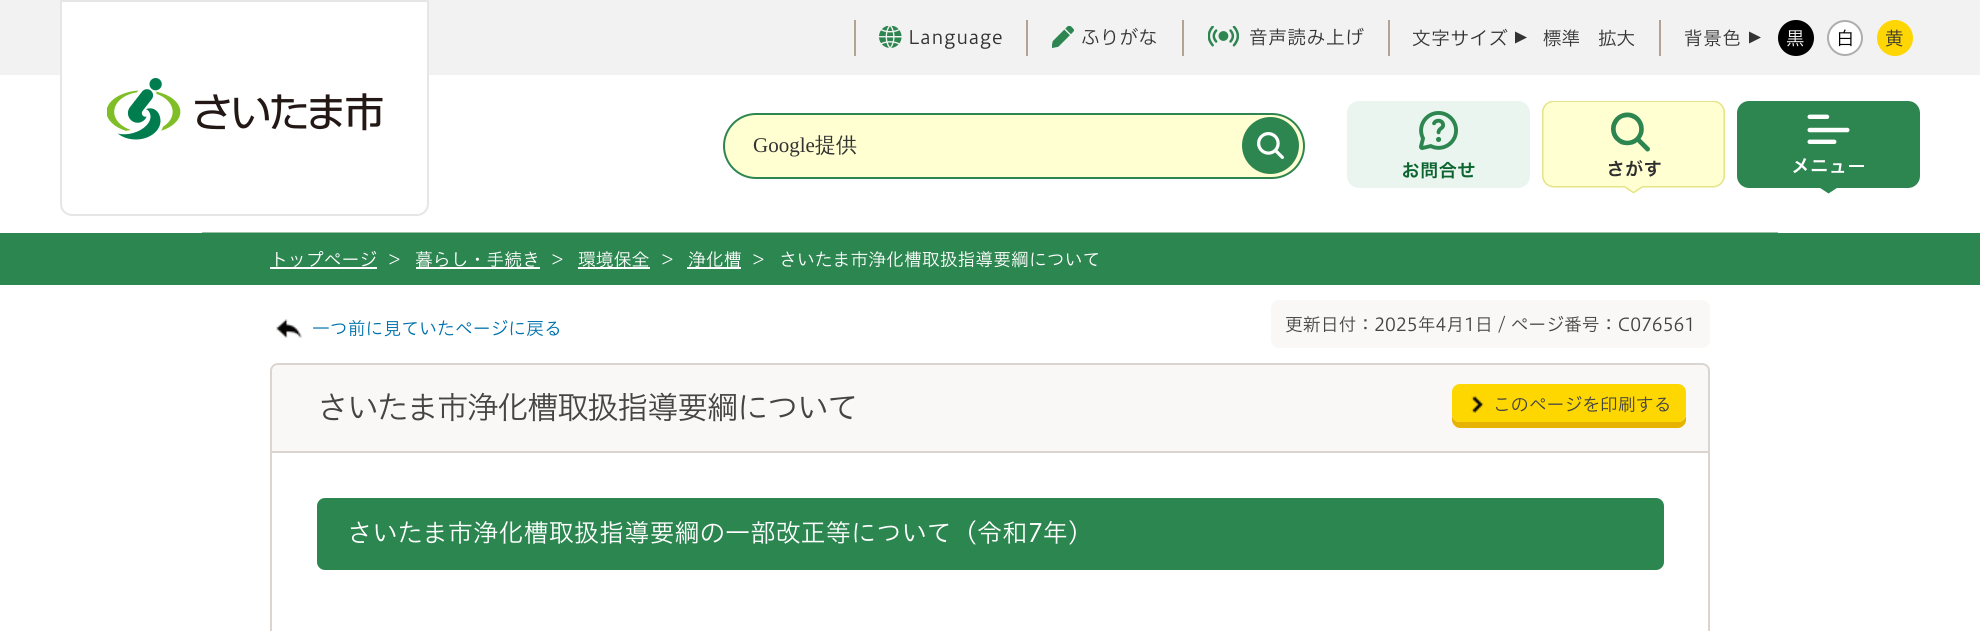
#include <cairo.h>
#include <math.h>
#include <stddef.h>


static void set_color(cairo_t *cr, unsigned color) {
    cairo_set_source_rgb(cr, (color >> 16) / 255.0, (color >> 8 & 255) / 255.0, (color & 255) / 255.0);
}

static void draw_text(cairo_t *cr, double x, double y, const char *s, const char *family, double size, int italic, int bold, unsigned color) {
    cairo_select_font_face(cr, family, italic ? CAIRO_FONT_SLANT_ITALIC : CAIRO_FONT_SLANT_NORMAL,
        bold ? CAIRO_FONT_WEIGHT_BOLD : CAIRO_FONT_WEIGHT_NORMAL);
    cairo_set_font_size(cr, size);
    set_color(cr, color);
    cairo_move_to(cr, x, y);
    cairo_show_text(cr, s);
}

static void draw_spaced(cairo_t *cr, double x, double y, const char *s, double letter, double word) {
    cairo_move_to(cr, x, y);
    while (*s) {
        char ch[5] = {0};
        int n = 0;
        do ch[n++] = *s++; while ((*s & 0xC0) == 0x80);
        cairo_show_text(cr, ch);
        cairo_rel_move_to(cr, letter + word * (*ch == ' '), 0);
    }
}

static void fill_rect(cairo_t *cr, double x, double y, double w, double h, unsigned color) {
    set_color(cr, color);
    cairo_rectangle(cr, x, y, w, h);
    cairo_fill(cr);
}

static void rounded_rect(cairo_t *cr, double x, double y, double w, double h, double r) {
    cairo_new_sub_path(cr);
    cairo_arc(cr, x + w - r, y + h - r, r, 0, M_PI / 2);
    cairo_arc(cr, x + r, y + h - r, r, M_PI / 2, M_PI);
    cairo_arc(cr, x + r, y + r, r, M_PI, 1.5 * M_PI);
    cairo_arc(cr, x + w - r, y + r, r, 1.5 * M_PI, 2 * M_PI);
    cairo_close_path(cr);
}

static void draw_image(cairo_t *cr, const char *path, double x, double y, double w, double h) {
    cairo_surface_t *image = cairo_image_surface_create_from_png(path);
    cairo_save(cr);
    cairo_set_source_surface(cr, image, x, y);
    cairo_rectangle(cr, x, y, w, h);
    cairo_fill(cr);
    cairo_restore(cr);
    cairo_surface_destroy(image);
}

int main(void) {
    cairo_surface_t *surface = cairo_image_surface_create(CAIRO_FORMAT_RGB24, 1980, 631);
    cairo_t *cr = cairo_create(surface);
    cairo_font_options_t *options = cairo_font_options_create();
    cairo_font_options_set_hint_metrics(options, CAIRO_HINT_METRICS_OFF);
    cairo_font_options_set_hint_style(options, CAIRO_HINT_STYLE_NONE);
    cairo_set_font_options(cr, options);
    cairo_set_miter_limit(cr, 4);
    set_color(cr, 0xFFFFFF);
    cairo_paint(cr);
    fill_rect(cr, 0, 0, 1980, 75, 0xF2F2F2);
    set_color(cr, 0xFFFFFF);
    cairo_new_path(cr);
    cairo_move_to(cr, 61, 1);
    cairo_line_to(cr, 428, 1);
    cairo_line_to(cr, 428, 204);
    cairo_curve_to(cr, 428, 210, 423, 215, 417, 215);
    cairo_line_to(cr, 72, 215);
    cairo_curve_to(cr, 66, 215, 61, 210, 61, 204);
    cairo_close_path(cr);
    cairo_fill_preserve(cr);
    set_color(cr, 0xE6E6E6);
    cairo_stroke(cr);
    draw_image(cr, "assets/img1.png", 107, 78, 276, 62);
    fill_rect(cr, 854, 20, 2, 36, 0xB0A392);
    draw_image(cr, "assets/img2.png", 879, 26, 23, 22);
    cairo_select_font_face(cr, "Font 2 Light", CAIRO_FONT_SLANT_NORMAL, CAIRO_FONT_WEIGHT_NORMAL);
    cairo_set_font_size(cr, 18.5);
    set_color(cr, 0x333333);
    draw_spaced(cr, 908, 44, "Language", 0.75, 0);
    fill_rect(cr, 1026, 20, 2, 36, 0xB0A392);
    draw_image(cr, "assets/img3.png", 1052, 26, 22, 22);
    set_color(cr, 0x333333);
    draw_spaced(cr, 1081, 44, "ふりがな", 0.75, 0);
    fill_rect(cr, 1182, 20, 2, 36, 0xB0A392);
    draw_image(cr, "assets/img4.png", 1208, 26, 31, 21);
    set_color(cr, 0x333333);
    draw_spaced(cr, 1249, 44, "音声読み上げ", 0.75, 0);
    fill_rect(cr, 1388, 20, 2, 36, 0xB0A392);
    set_color(cr, 0x333333);
    draw_spaced(cr, 1412, 45, "文字サイズ", 0.75, 0);
    cairo_new_path(cr);
    cairo_move_to(cr, 1515, 43.5);
    cairo_line_to(cr, 1515, 31.5);
    cairo_line_to(cr, 1527, 37.5);
    cairo_close_path(cr);
    cairo_fill(cr);
    draw_text(cr, 1543, 45, "標準", "Font 2 Light", 18.5, 0, 0, 0x333333);
    draw_text(cr, 1598, 45, "拡大", "Font 2 Light", 18.5, 0, 0, 0x333333);
    fill_rect(cr, 1659, 20, 2, 36, 0xB0A392);
    set_color(cr, 0x333333);
    draw_spaced(cr, 1684, 45, "背景色", 0.75, 0);
    cairo_new_path(cr);
    cairo_move_to(cr, 1749, 43.5);
    cairo_line_to(cr, 1749, 31.5);
    cairo_line_to(cr, 1761, 37.5);
    cairo_close_path(cr);
    cairo_fill(cr);
    set_color(cr, 0x000000);
    cairo_arc(cr, 1796, 38, 17, 0, 2 * M_PI);
    cairo_fill_preserve(cr);
    cairo_stroke(cr);
    draw_text(cr, 1786, 45, "黒", "Font 2 Light", 18.5, 0, 0, 0xFFFFFF);
    cairo_new_path(cr);
    cairo_arc(cr, 1845, 38, 17, 0, 2 * M_PI);
    cairo_fill_preserve(cr);
    set_color(cr, 0xAEAEAE);
    cairo_stroke(cr);
    draw_text(cr, 1836, 45, "白", "Font 2 Light", 18.5, 0, 0, 0x000000);
    set_color(cr, 0xFED603);
    cairo_new_path(cr);
    cairo_arc(cr, 1895, 38, 17, 0, 2 * M_PI);
    cairo_fill_preserve(cr);
    cairo_stroke(cr);
    draw_text(cr, 1885, 45, "黄", "Font 2 Light", 18.5, 0, 0, 0x333333);
    set_color(cr, 0xFFFFD1);
    rounded_rect(cr, 724, 114, 580, 64, 32);
    cairo_fill_preserve(cr);
    set_color(cr, 0x2D8650);
    cairo_stroke(cr);
    draw_text(cr, 753, 152, "Google", "Liberation Serif", 21, 0, 0, 0x333333);
    draw_text(cr, 815, 152, "提供", "WenQuanYi Zen Hei Medium", 21, 0, 0, 0x333333);
    set_color(cr, 0x2D8650);
    cairo_new_path(cr);
    cairo_arc(cr, 1270.5, 145.5, 28.5, 0, 2 * M_PI);
    cairo_fill(cr);
    draw_image(cr, "assets/img5.png", 1257, 132, 27, 27);
    draw_image(cr, "assets/img6.png", 1347, 101, 183, 87);
    draw_image(cr, "assets/img7.png", 1542, 101, 183, 93);
    draw_image(cr, "assets/img8.png", 1737, 101, 183, 93);
    fill_rect(cr, 0, 233, 1980, 52, 0x2C8650);
    fill_rect(cr, 202, 232, 1576, 1, 0x96C2A8);
    draw_text(cr, 270, 266, "トップページ", "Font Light", 17.85, 0, 0, 0xFFFFFF);
    fill_rect(cr, 270, 267, 107, 2, 0xFFFFFF);
    draw_text(cr, 389, 266, ">", "Font Light", 17.85, 0, 0, 0xFFFFFF);
    fill_rect(cr, 416, 267, 124, 2, 0xFFFFFF);
    draw_text(cr, 415, 266, "暮らし・手続き", "Font Light", 17.85, 0, 0, 0xFFFFFF);
    draw_text(cr, 552, 266, ">", "Font Light", 17.85, 0, 0, 0xFFFFFF);
    fill_rect(cr, 578, 267, 72, 2, 0xFFFFFF);
    draw_text(cr, 578, 266, "環境保全", "Font Light", 17.85, 0, 0, 0xFFFFFF);
    draw_text(cr, 662, 266, ">", "Font Light", 17.85, 0, 0, 0xFFFFFF);
    fill_rect(cr, 687, 267, 54, 2, 0xFFFFFF);
    draw_text(cr, 688, 266, "浄化槽", "Font Light", 17.85, 0, 0, 0xFFFFFF);
    draw_text(cr, 753, 266, ">", "Font Light", 17.85, 0, 0, 0xFFFFFF);
    draw_text(cr, 779, 266, "さいたま市浄化槽取扱指導要綱について", "Font Light", 17.85, 0, 0, 0xFFFFFF);
    draw_image(cr, "assets/img9.png", 276, 319, 26, 19);
    draw_text(cr, 312, 335, "一つ前に見ていたページに戻る", "Font Light", 17.85, 0, 0, 0x0071AC);
    set_color(cr, 0xFAF8F6);
    rounded_rect(cr, 1271, 300, 439, 48, 8);
    cairo_fill(cr);
    draw_text(cr, 1285, 331, "更新日付：2025年4月1日 / ページ番号：C076561", "Font Light", 17.85, 0, 0, 0x444444);
    set_color(cr, 0xFAF8F6);
    cairo_new_path(cr);
    cairo_move_to(cr, 278, 364);
    cairo_line_to(cr, 1702, 364);
    cairo_curve_to(cr, 1706, 364, 1709, 367, 1709, 371);
    cairo_line_to(cr, 1709, 452);
    cairo_line_to(cr, 271, 452);
    cairo_line_to(cr, 271, 371);
    cairo_curve_to(cr, 271, 367, 274, 364, 278, 364);
    cairo_close_path(cr);
    cairo_fill_preserve(cr);
    set_color(cr, 0xDBD5D1);
    cairo_stroke(cr);
    cairo_set_font_size(cr, 31.5);
    set_color(cr, 0x444444);
    draw_spaced(cr, 317, 419, "さいたま市浄化槽取扱指導要綱について", -1.5, 0);
    set_color(cr, 0xE6B300);
    cairo_new_path(cr);
    cairo_move_to(cr, 1452, 414);
    cairo_line_to(cr, 1452, 420);
    cairo_curve_to(cr, 1452, 424, 1456, 428, 1460, 428);
    cairo_line_to(cr, 1678, 428);
    cairo_curve_to(cr, 1682, 428, 1686, 424, 1686, 420);
    cairo_line_to(cr, 1686, 414);
    cairo_curve_to(cr, 1686, 418, 1683, 422, 1678, 422);
    cairo_line_to(cr, 1460, 422);
    cairo_curve_to(cr, 1455, 422, 1452, 418, 1452, 414);
    cairo_close_path(cr);
    cairo_fill(cr);
    set_color(cr, 0xFED700);
    rounded_rect(cr, 1452, 384, 234, 38, 8);
    cairo_fill(cr);
    draw_image(cr, "assets/img10.png", 1471, 396, 13, 17);
    draw_text(cr, 1493, 411, "このページを印刷する", "Font Light", 17.85, 0, 0, 0x444444);
    set_color(cr, 0xDBD5D1);
    cairo_set_fill_rule(cr, CAIRO_FILL_RULE_EVEN_ODD);
    cairo_new_path(cr);
    cairo_move_to(cr, 270, 453);
    cairo_line_to(cr, 1710, 453);
    cairo_line_to(cr, 1710, 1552);
    cairo_curve_to(cr, 1710, 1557, 1707, 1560, 1702, 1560);
    cairo_line_to(cr, 278, 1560);
    cairo_curve_to(cr, 273, 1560, 270, 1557, 270, 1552);
    cairo_close_path(cr);
    cairo_move_to(cr, 272, 453);
    cairo_line_to(cr, 1708, 453);
    cairo_line_to(cr, 1708, 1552);
    cairo_curve_to(cr, 1708, 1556, 1706, 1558, 1702, 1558);
    cairo_line_to(cr, 278, 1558);
    cairo_curve_to(cr, 274, 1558, 272, 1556, 272, 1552);
    cairo_close_path(cr);
    cairo_fill(cr);
    set_color(cr, 0x2C8650);
    rounded_rect(cr, 317, 498, 1347, 72, 8);
    cairo_fill(cr);
    draw_text(cr, 347, 542, "さいたま市浄化槽取扱指導要綱の一部改正等について（令和7年）", "Font Light", 25.2, 0, 0, 0xFFFFFF);
    cairo_surface_write_to_png(surface, "output.png");
    cairo_font_options_destroy(options);
    cairo_destroy(cr);
    cairo_surface_destroy(surface);
    return 0;
}
